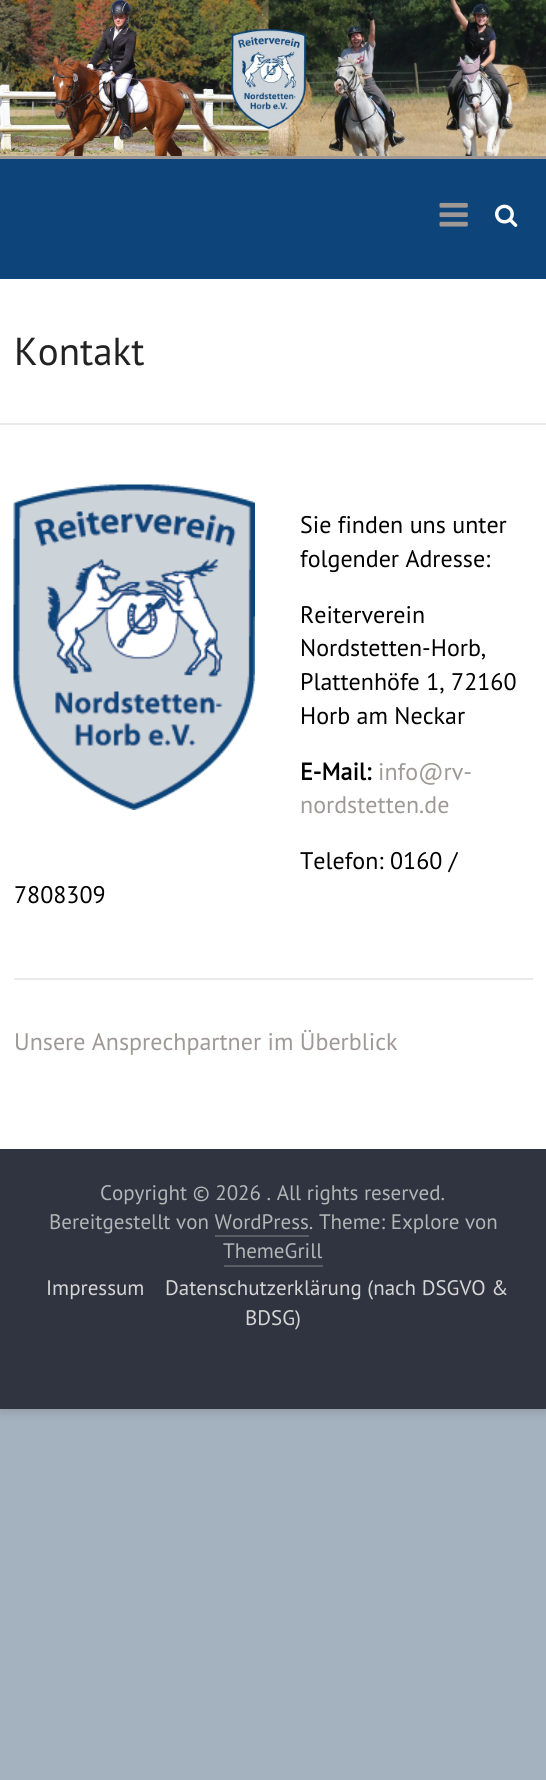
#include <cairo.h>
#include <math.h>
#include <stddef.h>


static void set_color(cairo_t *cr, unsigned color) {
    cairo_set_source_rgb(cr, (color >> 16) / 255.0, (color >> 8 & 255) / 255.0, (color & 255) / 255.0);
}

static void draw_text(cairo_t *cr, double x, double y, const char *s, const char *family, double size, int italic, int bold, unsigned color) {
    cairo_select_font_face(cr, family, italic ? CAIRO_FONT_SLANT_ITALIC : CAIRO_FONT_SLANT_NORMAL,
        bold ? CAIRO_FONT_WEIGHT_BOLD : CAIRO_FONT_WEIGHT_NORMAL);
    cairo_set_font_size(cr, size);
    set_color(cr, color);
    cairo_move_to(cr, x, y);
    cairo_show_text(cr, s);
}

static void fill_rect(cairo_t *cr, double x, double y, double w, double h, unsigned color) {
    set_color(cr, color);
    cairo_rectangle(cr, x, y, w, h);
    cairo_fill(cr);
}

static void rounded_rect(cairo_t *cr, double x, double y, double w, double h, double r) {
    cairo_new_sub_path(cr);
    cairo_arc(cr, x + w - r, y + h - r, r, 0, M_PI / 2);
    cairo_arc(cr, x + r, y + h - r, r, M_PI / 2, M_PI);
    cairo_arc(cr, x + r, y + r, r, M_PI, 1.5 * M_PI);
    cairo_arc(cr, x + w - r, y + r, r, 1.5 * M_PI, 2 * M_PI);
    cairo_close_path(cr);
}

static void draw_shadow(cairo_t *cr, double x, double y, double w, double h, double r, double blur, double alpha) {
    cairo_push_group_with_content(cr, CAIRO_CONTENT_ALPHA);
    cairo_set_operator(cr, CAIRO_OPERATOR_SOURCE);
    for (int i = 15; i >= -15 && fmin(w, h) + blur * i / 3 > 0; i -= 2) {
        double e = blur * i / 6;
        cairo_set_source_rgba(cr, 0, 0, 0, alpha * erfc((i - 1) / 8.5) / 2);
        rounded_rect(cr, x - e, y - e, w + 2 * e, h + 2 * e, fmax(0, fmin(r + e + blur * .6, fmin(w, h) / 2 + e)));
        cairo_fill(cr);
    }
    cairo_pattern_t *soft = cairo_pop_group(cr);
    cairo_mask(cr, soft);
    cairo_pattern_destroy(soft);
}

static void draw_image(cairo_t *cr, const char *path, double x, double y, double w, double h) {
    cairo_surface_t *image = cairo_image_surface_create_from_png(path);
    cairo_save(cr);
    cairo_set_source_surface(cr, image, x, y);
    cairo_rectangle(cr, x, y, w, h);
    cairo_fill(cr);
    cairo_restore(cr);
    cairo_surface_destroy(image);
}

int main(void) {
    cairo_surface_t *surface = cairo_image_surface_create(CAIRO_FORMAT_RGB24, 546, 1780);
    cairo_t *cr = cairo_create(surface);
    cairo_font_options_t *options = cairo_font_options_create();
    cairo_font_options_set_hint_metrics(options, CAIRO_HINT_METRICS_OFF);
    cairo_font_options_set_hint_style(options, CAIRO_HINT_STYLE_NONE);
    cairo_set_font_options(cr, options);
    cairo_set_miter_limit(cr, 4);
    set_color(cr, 0xA4B2BF);
    cairo_paint(cr);
    set_color(cr, 0x646464);
    draw_shadow(cr, 0, 3, 546, 1409, 0, 4.5, 0.3);
    fill_rect(cr, 0, 425, 546, 724, 0xFFFFFF);
    draw_image(cr, "assets/img1.png", 0, 0, 546, 156);
    fill_rect(cr, 0, 159, 546, 120, 0x0D4479);
    fill_rect(cr, 0, 156, 546, 3, 0x9E9897);
    draw_image(cr, "assets/img2.png", 439, 202, 29, 25);
    draw_image(cr, "assets/img3.png", 495, 204, 23, 23);
    fill_rect(cr, 0, 279, 546, 144, 0xFFFFFF);
    fill_rect(cr, 0, 423, 546, 2, 0xEAEAEA);
    draw_text(cr, 14, 365, "Kontakt", "PT Sans", 39, 0, 0, 0x222222);
    draw_image(cr, "assets/img4.png", 13, 484, 242, 326);
    draw_text(cr, 300, 533, "Sie finden uns unter", "PT Sans", 24, 0, 0, 0x000000);
    draw_text(cr, 300, 567, "folgender Adresse:", "PT Sans", 24, 0, 0, 0x000000);
    draw_text(cr, 300, 623, "Reiterverein", "PT Sans", 24, 0, 0, 0x000000);
    draw_text(cr, 300, 656, "Nordstetten-Horb,", "PT Sans", 24, 0, 0, 0x000000);
    draw_text(cr, 300, 690, "Plattenhöfe 1, 72160", "PT Sans", 24, 0, 0, 0x000000);
    draw_text(cr, 300, 724, "Horb am Neckar", "PT Sans", 24, 0, 0, 0x000000);
    draw_text(cr, 300, 780, "E-Mail:", "PT Sans", 24, 0, 1, 0x000000);
    draw_text(cr, 378, 780, "info@rv-", "PT Sans", 24, 0, 0, 0x9E9897);
    draw_text(cr, 300, 813, "nordstetten.de", "PT Sans", 24, 0, 0, 0x9E9897);
    draw_text(cr, 300, 869, "Telefon: 0160 /", "PT Sans", 24, 0, 0, 0x000000);
    draw_text(cr, 14, 903, "7808309", "PT Sans", 24, 0, 0, 0x000000);
    fill_rect(cr, 14, 978, 519, 2, 0xEAEAEA);
    draw_text(cr, 14, 1050, "Unsere Ansprechpartner im Überblick", "PT Sans", 24, 0, 0, 0x9E9897);
    fill_rect(cr, 0, 1149, 546, 260, 0x303440);
    draw_text(cr, 100, 1200, "Copyright © 2026 . All rights reserved.", "PT Sans", 21, 0, 0, 0xB1B6B6);
    draw_text(cr, 49, 1229, "Bereitgestellt von WordPress. Theme: Explore von", "PT Sans", 21, 0, 0, 0xB1B6B6);
    fill_rect(cr, 215, 1235, 94, 2, 0x5A5D62);
    draw_text(cr, 223, 1258, "ThemeGrill", "PT Sans", 21, 0, 0, 0xB1B6B6);
    fill_rect(cr, 224, 1265, 99, 2, 0x5A5D62);
    draw_text(cr, 46, 1295, "Impressum", "PT Sans", 21, 0, 0, 0xD5D5D5);
    draw_text(cr, 165, 1295, "Datenschutzerklärung (nach DSGVO &", "PT Sans", 21, 0, 0, 0xD5D5D5);
    draw_text(cr, 245, 1325, "BDSG)", "PT Sans", 21, 0, 0, 0xD5D5D5);
    cairo_surface_write_to_png(surface, "output.png");
    cairo_font_options_destroy(options);
    cairo_destroy(cr);
    cairo_surface_destroy(surface);
    return 0;
}
